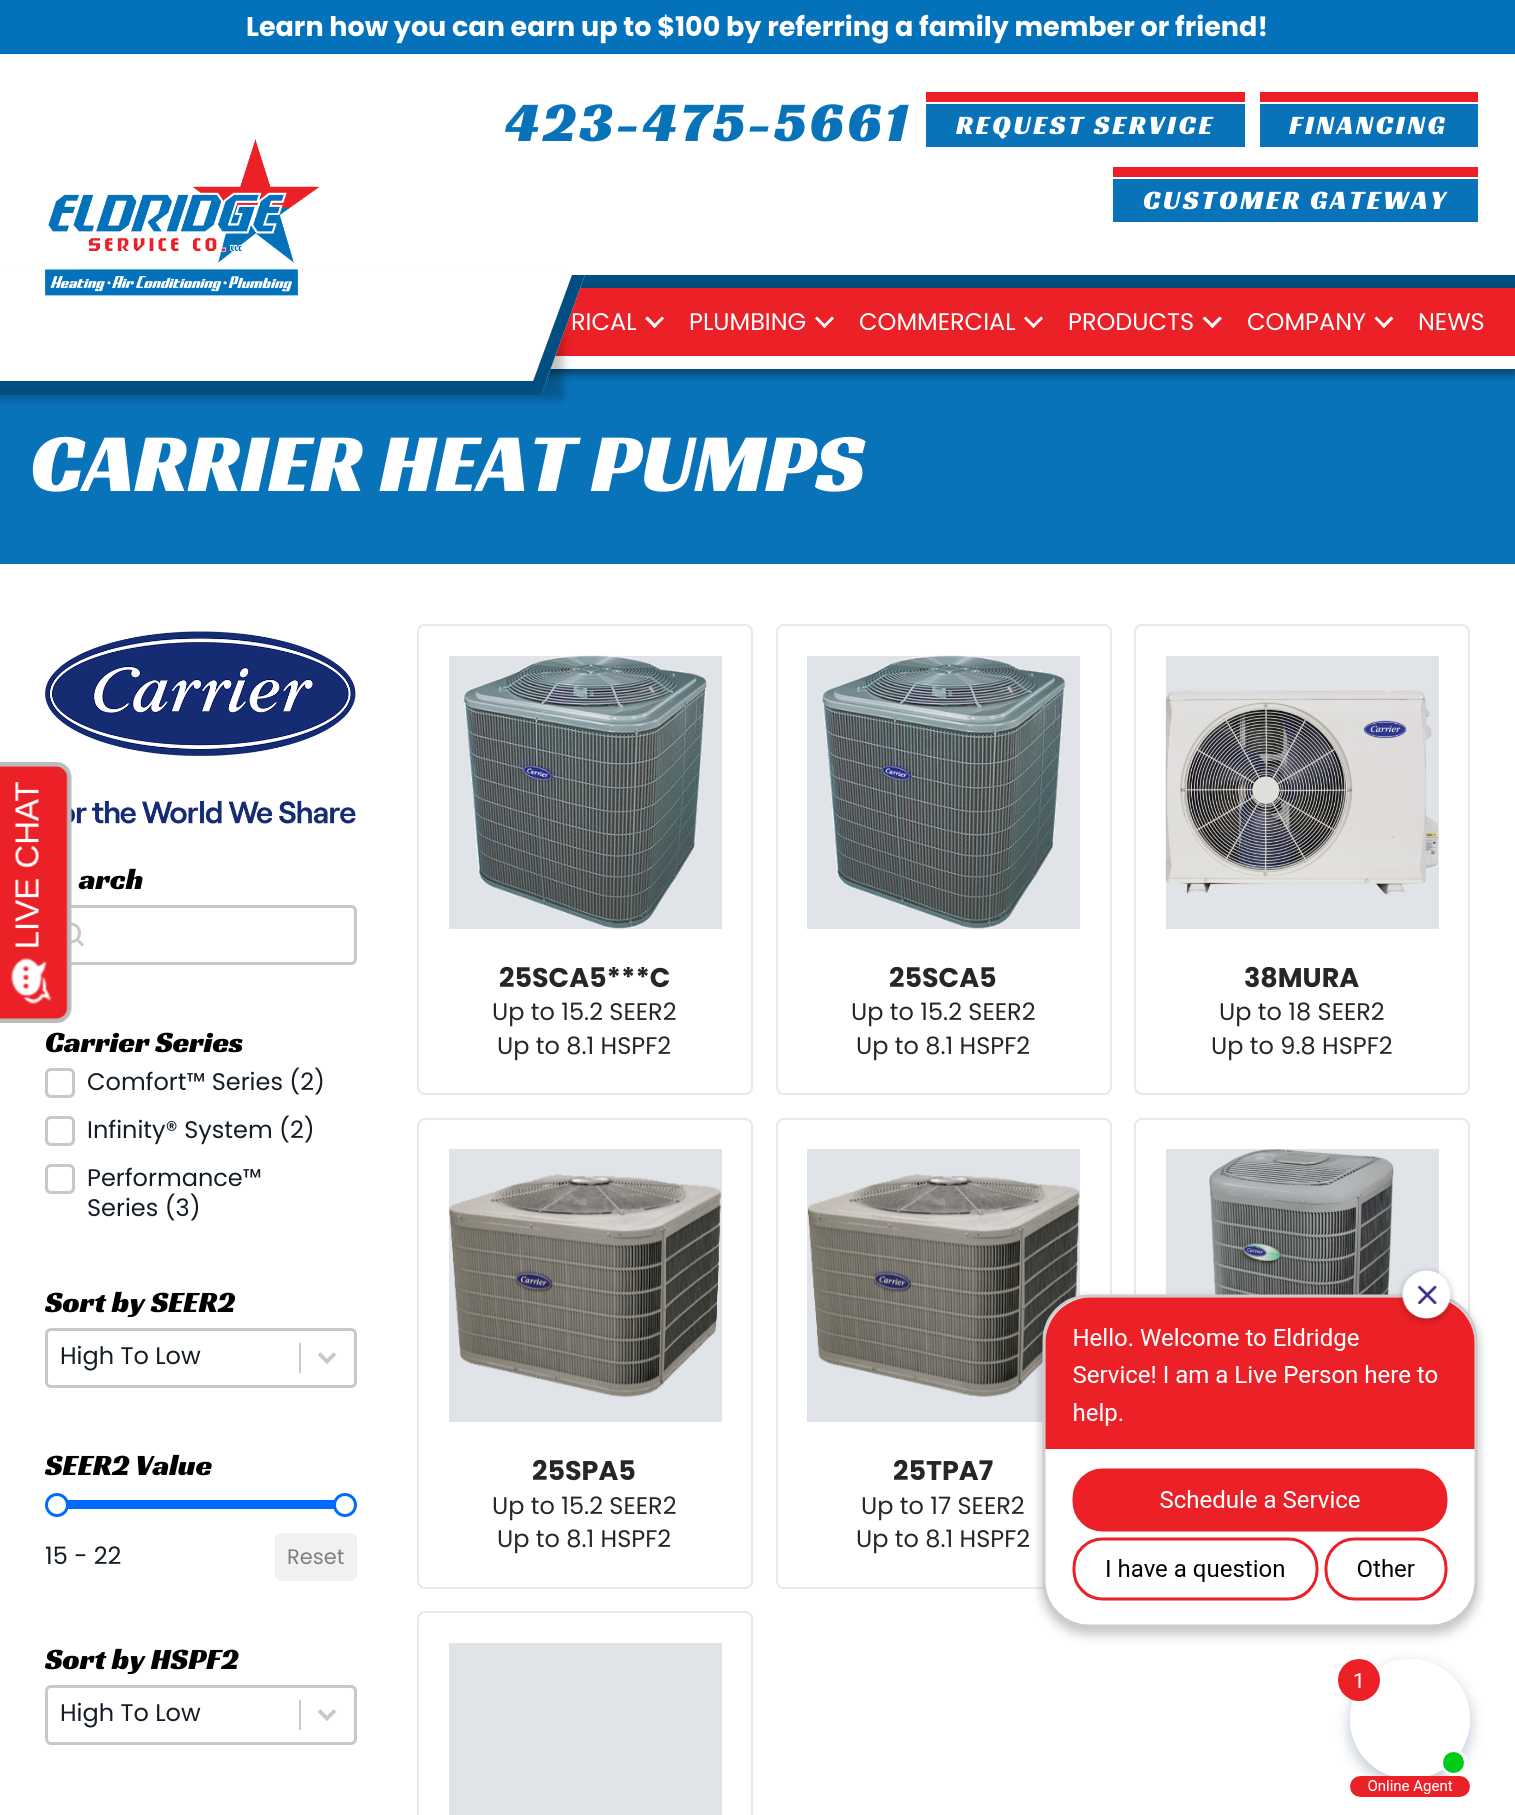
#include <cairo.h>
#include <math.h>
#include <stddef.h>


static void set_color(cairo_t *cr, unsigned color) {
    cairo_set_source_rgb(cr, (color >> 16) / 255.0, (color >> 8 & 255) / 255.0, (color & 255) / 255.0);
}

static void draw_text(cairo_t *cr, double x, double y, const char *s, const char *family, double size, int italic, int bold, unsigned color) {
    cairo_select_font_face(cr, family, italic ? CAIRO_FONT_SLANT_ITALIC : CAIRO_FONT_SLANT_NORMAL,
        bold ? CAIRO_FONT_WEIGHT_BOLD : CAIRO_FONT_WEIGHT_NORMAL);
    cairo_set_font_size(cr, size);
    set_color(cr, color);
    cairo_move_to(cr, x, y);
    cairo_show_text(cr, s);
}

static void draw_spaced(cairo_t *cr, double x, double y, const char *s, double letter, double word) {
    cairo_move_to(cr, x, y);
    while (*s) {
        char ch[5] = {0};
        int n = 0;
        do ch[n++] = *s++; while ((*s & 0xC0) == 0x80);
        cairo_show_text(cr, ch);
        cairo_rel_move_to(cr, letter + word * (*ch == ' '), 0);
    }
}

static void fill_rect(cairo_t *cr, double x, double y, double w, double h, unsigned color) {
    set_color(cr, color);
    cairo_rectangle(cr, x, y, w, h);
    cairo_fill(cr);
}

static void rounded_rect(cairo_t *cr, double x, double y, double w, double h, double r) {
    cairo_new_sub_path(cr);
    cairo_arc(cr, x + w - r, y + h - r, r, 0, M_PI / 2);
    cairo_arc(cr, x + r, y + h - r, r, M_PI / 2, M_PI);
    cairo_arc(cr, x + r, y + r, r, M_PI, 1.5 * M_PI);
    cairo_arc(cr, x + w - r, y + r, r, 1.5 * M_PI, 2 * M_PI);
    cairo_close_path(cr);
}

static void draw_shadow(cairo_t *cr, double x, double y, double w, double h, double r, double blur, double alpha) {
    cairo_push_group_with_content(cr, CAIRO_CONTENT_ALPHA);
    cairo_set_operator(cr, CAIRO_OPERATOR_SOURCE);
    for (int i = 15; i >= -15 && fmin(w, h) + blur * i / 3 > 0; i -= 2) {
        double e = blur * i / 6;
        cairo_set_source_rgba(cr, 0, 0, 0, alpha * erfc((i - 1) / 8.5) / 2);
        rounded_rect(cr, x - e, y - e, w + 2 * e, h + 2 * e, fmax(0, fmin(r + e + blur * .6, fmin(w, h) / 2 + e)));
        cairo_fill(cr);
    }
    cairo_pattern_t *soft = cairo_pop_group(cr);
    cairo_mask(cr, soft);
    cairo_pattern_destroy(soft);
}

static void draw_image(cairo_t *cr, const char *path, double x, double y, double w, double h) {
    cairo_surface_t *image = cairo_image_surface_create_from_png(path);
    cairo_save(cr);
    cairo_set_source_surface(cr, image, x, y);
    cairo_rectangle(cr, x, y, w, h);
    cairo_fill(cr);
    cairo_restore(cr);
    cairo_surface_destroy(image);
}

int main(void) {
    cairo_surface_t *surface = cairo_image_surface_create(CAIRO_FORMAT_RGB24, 1515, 1815);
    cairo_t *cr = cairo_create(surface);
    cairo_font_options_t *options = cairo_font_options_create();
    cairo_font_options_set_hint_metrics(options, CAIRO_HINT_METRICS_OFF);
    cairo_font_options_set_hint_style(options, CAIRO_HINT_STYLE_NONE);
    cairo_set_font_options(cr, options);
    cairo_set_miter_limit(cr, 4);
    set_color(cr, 0xFFFFFF);
    cairo_paint(cr);
    fill_rect(cr, 0, 0, 1515, 54, 0x0472BB);
    draw_text(cr, 246, 36, "Learn how you can earn up to $100 by referring a family member or friend!", "Poppins", 27, 0, 1, 0xFFFFFF);
    cairo_save(cr);
    cairo_rectangle(cr, 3, 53, 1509, 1);
    cairo_clip(cr);
    set_color(cr, 0x000000);
    draw_shadow(cr, 0, 59, 1515, 234, 0, 4.5, 0.25);
    cairo_restore(cr);
    fill_rect(cr, 580, 275, 935, 13, 0x024E81);
    fill_rect(cr, 0, 369, 1515, 195, 0x0973BA);
    cairo_save(cr);
    cairo_set_fill_rule(cr, CAIRO_FILL_RULE_EVEN_ODD);
    cairo_new_path(cr);
    cairo_move_to(cr, 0, 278);
    cairo_line_to(cr, 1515, 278);
    cairo_line_to(cr, 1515, 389);
    cairo_line_to(cr, 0, 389);
    cairo_close_path(cr);
    cairo_move_to(cr, 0, 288);
    cairo_line_to(cr, 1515, 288);
    cairo_line_to(cr, 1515, 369);
    cairo_line_to(cr, 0, 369);
    cairo_close_path(cr);
    cairo_clip(cr);
    set_color(cr, 0x000000);
    draw_shadow(cr, 0, 293, 1515, 81, 0, 4.5, 0.45);
    cairo_restore(cr);
    fill_rect(cr, 555, 288, 960, 68, 0xEC2027);
    set_color(cr, 0x000000);
    draw_shadow(cr, -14, 279, 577, 120, 0, 4.5, 0.25);
    set_color(cr, 0xFFFFFF);
    cairo_new_path(cr);
    cairo_move_to(cr, 0, 275);
    cairo_line_to(cr, 585, 275);
    cairo_line_to(cr, 541, 395);
    cairo_line_to(cr, -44, 395);
    cairo_close_path(cr);
    cairo_fill(cr);
    fill_rect(cr, 0, 271, 566, 4, 0xFFFFFF);
    draw_image(cr, "assets/img1.png", 45, 139, 275, 157);
    cairo_select_font_face(cr, "Racing Sans One", CAIRO_FONT_SLANT_NORMAL, CAIRO_FONT_WEIGHT_NORMAL);
    cairo_set_font_size(cr, 57);
    set_color(cr, 0x0973BA);
    draw_spaced(cr, 505, 141, "423-475-5661", 2.75, 0);
    fill_rect(cr, 926, 92, 319, 10, 0xEC2027);
    fill_rect(cr, 926, 104, 319, 43, 0x0973BA);
    cairo_set_font_size(cr, 27);
    set_color(cr, 0xFFFFFF);
    draw_spaced(cr, 956, 134, "REQUEST SERVICE", 2.75, 0);
    fill_rect(cr, 1260, 92, 218, 10, 0xEC2027);
    fill_rect(cr, 1260, 104, 218, 43, 0x0973BA);
    set_color(cr, 0xFFFFFF);
    draw_spaced(cr, 1289, 134, "FINANCING", 2.75, 0);
    fill_rect(cr, 1113, 167, 365, 10, 0xEC2027);
    fill_rect(cr, 1113, 179, 365, 43, 0x0973BA);
    set_color(cr, 0xFFFFFF);
    draw_spaced(cr, 1143, 209, "CUSTOMER GATEWAY", 2.75, 0);
    draw_text(cr, 571, 330, "RICAL", "Poppins", 24, 0, 0, 0xFFFFFF);
    set_color(cr, 0x024E81);
    cairo_new_path(cr);
    cairo_move_to(cr, 572, 275);
    cairo_line_to(cr, 585, 275);
    cairo_line_to(cr, 541, 395);
    cairo_line_to(cr, 528, 395);
    cairo_close_path(cr);
    cairo_fill(cr);
    cairo_new_path(cr);
    cairo_move_to(cr, -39, 381);
    cairo_line_to(cr, 546, 381);
    cairo_line_to(cr, 541, 395);
    cairo_line_to(cr, -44, 395);
    cairo_close_path(cr);
    cairo_fill(cr);
    set_color(cr, 0xFFFFFF);
    cairo_new_path(cr);
    cairo_move_to(cr, 662, 316.5);
    cairo_line_to(cr, 664, 318.5);
    cairo_line_to(cr, 654.5, 328);
    cairo_line_to(cr, 652.5, 326);
    cairo_close_path(cr);
    cairo_fill(cr);
    cairo_new_path(cr);
    cairo_move_to(cr, 647.5, 316.5);
    cairo_line_to(cr, 657, 326);
    cairo_line_to(cr, 654.5, 328);
    cairo_line_to(cr, 645, 318.5);
    cairo_close_path(cr);
    cairo_fill(cr);
    draw_text(cr, 689, 330, "PLUMBING", "Poppins", 24, 0, 0, 0xFFFFFF);
    cairo_new_path(cr);
    cairo_move_to(cr, 832, 316.5);
    cairo_line_to(cr, 834, 318.5);
    cairo_line_to(cr, 824.5, 328);
    cairo_line_to(cr, 822.5, 326);
    cairo_close_path(cr);
    cairo_fill(cr);
    cairo_new_path(cr);
    cairo_move_to(cr, 817, 316.5);
    cairo_line_to(cr, 826.5, 326);
    cairo_line_to(cr, 824.5, 328);
    cairo_line_to(cr, 815, 318.5);
    cairo_close_path(cr);
    cairo_fill(cr);
    draw_text(cr, 859, 330, "COMMERCIAL", "Poppins", 24, 0, 0, 0xFFFFFF);
    cairo_new_path(cr);
    cairo_move_to(cr, 1041, 316.5);
    cairo_line_to(cr, 1043, 318.5);
    cairo_line_to(cr, 1033.5, 328);
    cairo_line_to(cr, 1031.5, 326);
    cairo_close_path(cr);
    cairo_fill(cr);
    cairo_new_path(cr);
    cairo_move_to(cr, 1026, 316.5);
    cairo_line_to(cr, 1035.5, 326);
    cairo_line_to(cr, 1033.5, 328);
    cairo_line_to(cr, 1024, 318.5);
    cairo_close_path(cr);
    cairo_fill(cr);
    draw_text(cr, 1068, 330, "PRODUCTS", "Poppins", 24, 0, 0, 0xFFFFFF);
    cairo_new_path(cr);
    cairo_move_to(cr, 1219.5, 316.5);
    cairo_line_to(cr, 1222, 318.5);
    cairo_line_to(cr, 1212.5, 328);
    cairo_line_to(cr, 1210, 326);
    cairo_close_path(cr);
    cairo_fill(cr);
    cairo_new_path(cr);
    cairo_move_to(cr, 1205, 316.5);
    cairo_line_to(cr, 1214.5, 326);
    cairo_line_to(cr, 1212.5, 328);
    cairo_line_to(cr, 1202.5, 318.5);
    cairo_close_path(cr);
    cairo_fill(cr);
    draw_text(cr, 1247, 330, "COMPANY", "Poppins", 24, 0, 0, 0xFFFFFF);
    cairo_new_path(cr);
    cairo_move_to(cr, 1391, 316.5);
    cairo_line_to(cr, 1393.5, 318.5);
    cairo_line_to(cr, 1384, 328);
    cairo_line_to(cr, 1381.5, 326);
    cairo_close_path(cr);
    cairo_fill(cr);
    cairo_new_path(cr);
    cairo_move_to(cr, 1376.5, 316.5);
    cairo_line_to(cr, 1386, 326);
    cairo_line_to(cr, 1384, 328);
    cairo_line_to(cr, 1374.5, 318.5);
    cairo_close_path(cr);
    cairo_fill(cr);
    draw_text(cr, 1418, 330, "NEWS", "Poppins", 24, 0, 0, 0xFFFFFF);
    draw_text(cr, 30, 491, "CARRIER HEAT PUMPS", "Racing Sans One", 84, 0, 0, 0xFFFFFF);
    draw_image(cr, "assets/img2.png", 45, 631, 311, 193);
    draw_text(cr, 79, 889, "arch", "Racing Sans One", 30, 0, 0, 0x000000);
    rounded_rect(cr, 46.5, 906.5, 309, 57, 4.5);
    set_color(cr, 0xC8C8C8);
    cairo_set_line_width(cr, 3);
    cairo_stroke(cr);
    cairo_new_path(cr);
    cairo_move_to(cr, 77.5, 940);
    cairo_line_to(cr, 83, 945.5);
    cairo_close_path(cr);
    cairo_move_to(cr, 61.5, 933);
    cairo_curve_to(cr, 61.5, 921, 79.5, 921, 79.5, 933);
    cairo_curve_to(cr, 79.5, 945, 61.5, 945, 61.5, 933);
    cairo_close_path(cr);
    cairo_stroke(cr);
    draw_text(cr, 45, 1052, "Carrier Series", "Racing Sans One", 30, 0, 0, 0x000000);
    rounded_rect(cr, 46.5, 1069.5, 27, 27, 4.5);
    set_color(cr, 0xC8C8C8);
    cairo_stroke(cr);
    draw_text(cr, 87, 1090, "Comfort™ Series (2)", "Poppins", 24, 0, 0, 0x141C27);
    rounded_rect(cr, 46.5, 1117.5, 27, 27, 4.5);
    set_color(cr, 0xC8C8C8);
    cairo_stroke(cr);
    draw_text(cr, 87, 1138, "Infinity® System (2)", "Poppins", 24, 0, 0, 0x141C27);
    rounded_rect(cr, 46.5, 1165.5, 27, 27, 4.5);
    set_color(cr, 0xC8C8C8);
    cairo_stroke(cr);
    draw_text(cr, 87, 1186, "Performance™", "Poppins", 24, 0, 0, 0x141C27);
    draw_text(cr, 87, 1216, "Series (3)", "Poppins", 24, 0, 0, 0x141C27);
    draw_text(cr, 45, 1312, "Sort by SEER2", "Racing Sans One", 30, 0, 0, 0x000000);
    rounded_rect(cr, 46.5, 1329.5, 309, 57, 4.5);
    set_color(cr, 0xC8C8C8);
    cairo_stroke(cr);
    draw_text(cr, 60, 1364, "High To Low", "Poppins", 24, 0, 0, 0x141C27);
    fill_rect(cr, 299, 1343, 2, 30, 0xC8C8C8);
    cairo_new_path(cr);
    cairo_move_to(cr, 327, 1361.5);
    cairo_line_to(cr, 319, 1353.5);
    cairo_line_to(cr, 327, 1361.5);
    cairo_line_to(cr, 335, 1353.5);
    cairo_close_path(cr);
    cairo_set_line_width(cr, 3.8);
    cairo_stroke(cr);
    draw_text(cr, 45, 1475, "SEER2 Value", "Racing Sans One", 30, 0, 0, 0x000000);
    fill_rect(cr, 67, 1500, 268, 9, 0x0069FF);
    set_color(cr, 0xFFFFFF);
    cairo_new_path(cr);
    cairo_arc(cr, 57, 1505, 10.5, 0, 2 * M_PI);
    cairo_fill_preserve(cr);
    set_color(cr, 0x0069FF);
    cairo_set_line_width(cr, 3);
    cairo_stroke(cr);
    set_color(cr, 0xFFFFFF);
    cairo_arc(cr, 345, 1505, 10.5, 0, 2 * M_PI);
    cairo_fill_preserve(cr);
    set_color(cr, 0x0069FF);
    cairo_stroke(cr);
    draw_text(cr, 45, 1564, "15 - 22", "Poppins", 24, 0, 0, 0x141C27);
    set_color(cr, 0xF1F1F1);
    rounded_rect(cr, 275, 1533, 82, 48, 6);
    cairo_fill(cr);
    draw_text(cr, 287, 1564, "Reset", "Poppins", 21, 0, 0, 0x7F7F7F);
    draw_text(cr, 45, 1669, "Sort by HSPF2", "Racing Sans One", 30, 0, 0, 0x000000);
    rounded_rect(cr, 46.5, 1686.5, 309, 57, 4.5);
    set_color(cr, 0xC8C8C8);
    cairo_stroke(cr);
    draw_text(cr, 60, 1721, "High To Low", "Poppins", 24, 0, 0, 0x141C27);
    fill_rect(cr, 299, 1700, 2, 30, 0xC8C8C8);
    cairo_new_path(cr);
    cairo_move_to(cr, 327, 1718.5);
    cairo_line_to(cr, 319, 1710.5);
    cairo_line_to(cr, 327, 1718.5);
    cairo_line_to(cr, 335, 1710.5);
    cairo_close_path(cr);
    cairo_set_line_width(cr, 3.8);
    cairo_stroke(cr);
    rounded_rect(cr, 418, 625, 334, 469, 7);
    set_color(cr, 0xE8E8E8);
    cairo_set_line_width(cr, 2);
    cairo_stroke(cr);
    fill_rect(cr, 449, 656, 273, 273, 0xE0E4E9);
    draw_image(cr, "assets/img3.png", 463, 655, 244, 274);
    draw_text(cr, 499, 987, "25SCA5***C", "Poppins", 27, 0, 1, 0x262626);
    draw_text(cr, 492, 1020, "Up to 15.2 SEER2", "Poppins", 24, 0, 0, 0x262626);
    draw_text(cr, 497, 1054, "Up to 8.1 HSPF2", "Poppins", 24, 0, 0, 0x262626);
    rounded_rect(cr, 777, 625, 334, 469, 7);
    set_color(cr, 0xE8E8E8);
    cairo_stroke(cr);
    fill_rect(cr, 807, 656, 273, 273, 0xE0E4E9);
    draw_image(cr, "assets/img4.png", 821, 655, 245, 274);
    draw_text(cr, 889, 987, "25SCA5", "Poppins", 27, 0, 1, 0x262626);
    draw_text(cr, 851, 1020, "Up to 15.2 SEER2", "Poppins", 24, 0, 0, 0x262626);
    draw_text(cr, 856, 1054, "Up to 8.1 HSPF2", "Poppins", 24, 0, 0, 0x262626);
    rounded_rect(cr, 1135, 625, 334, 469, 7);
    set_color(cr, 0xE8E8E8);
    cairo_stroke(cr);
    fill_rect(cr, 1166, 656, 273, 273, 0xE0E4E9);
    draw_image(cr, "assets/img5.png", 1165, 690, 274, 205);
    draw_text(cr, 1244, 987, "38MURA", "Poppins", 27, 0, 1, 0x262626);
    draw_text(cr, 1219, 1020, "Up to 18 SEER2", "Poppins", 24, 0, 0, 0x262626);
    draw_text(cr, 1211, 1054, "Up to 9.8 HSPF2", "Poppins", 24, 0, 0, 0x262626);
    rounded_rect(cr, 418, 1119, 334, 469, 7);
    set_color(cr, 0xE8E8E8);
    cairo_stroke(cr);
    fill_rect(cr, 449, 1149, 273, 273, 0xE0E4E9);
    draw_image(cr, "assets/img6.png", 448, 1174, 274, 223);
    draw_text(cr, 532, 1480, "25SPA5", "Poppins", 27, 0, 1, 0x262626);
    draw_text(cr, 492, 1514, "Up to 15.2 SEER2", "Poppins", 24, 0, 0, 0x262626);
    draw_text(cr, 497, 1547, "Up to 8.1 HSPF2", "Poppins", 24, 0, 0, 0x262626);
    rounded_rect(cr, 777, 1119, 334, 469, 7);
    set_color(cr, 0xE8E8E8);
    cairo_stroke(cr);
    fill_rect(cr, 807, 1149, 273, 273, 0xE0E4E9);
    draw_image(cr, "assets/img7.png", 807, 1174, 273, 223);
    draw_text(cr, 893, 1480, "25TPA7", "Poppins", 27, 0, 1, 0x262626);
    draw_text(cr, 861, 1514, "Up to 17 SEER2", "Poppins", 24, 0, 0, 0x262626);
    draw_text(cr, 856, 1547, "Up to 8.1 HSPF2", "Poppins", 24, 0, 0, 0x262626);
    rounded_rect(cr, 1135, 1119, 334, 469, 7);
    set_color(cr, 0xE8E8E8);
    cairo_stroke(cr);
    fill_rect(cr, 1166, 1149, 273, 146, 0xE0E4E9);
    draw_image(cr, "assets/img8.png", 1209, 1149, 185, 146);
    rounded_rect(cr, 418, 1612, 334, 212, 7);
    set_color(cr, 0xE8E8E8);
    cairo_stroke(cr);
    fill_rect(cr, 449, 1643, 273, 172, 0xE0E4E9);
    draw_image(cr, "assets/img9.png", 0, 762, 72, 261);
    draw_image(cr, "assets/img10.png", 1035, 1267, 450, 530);
    cairo_surface_write_to_png(surface, "output.png");
    cairo_font_options_destroy(options);
    cairo_destroy(cr);
    cairo_surface_destroy(surface);
    return 0;
}
